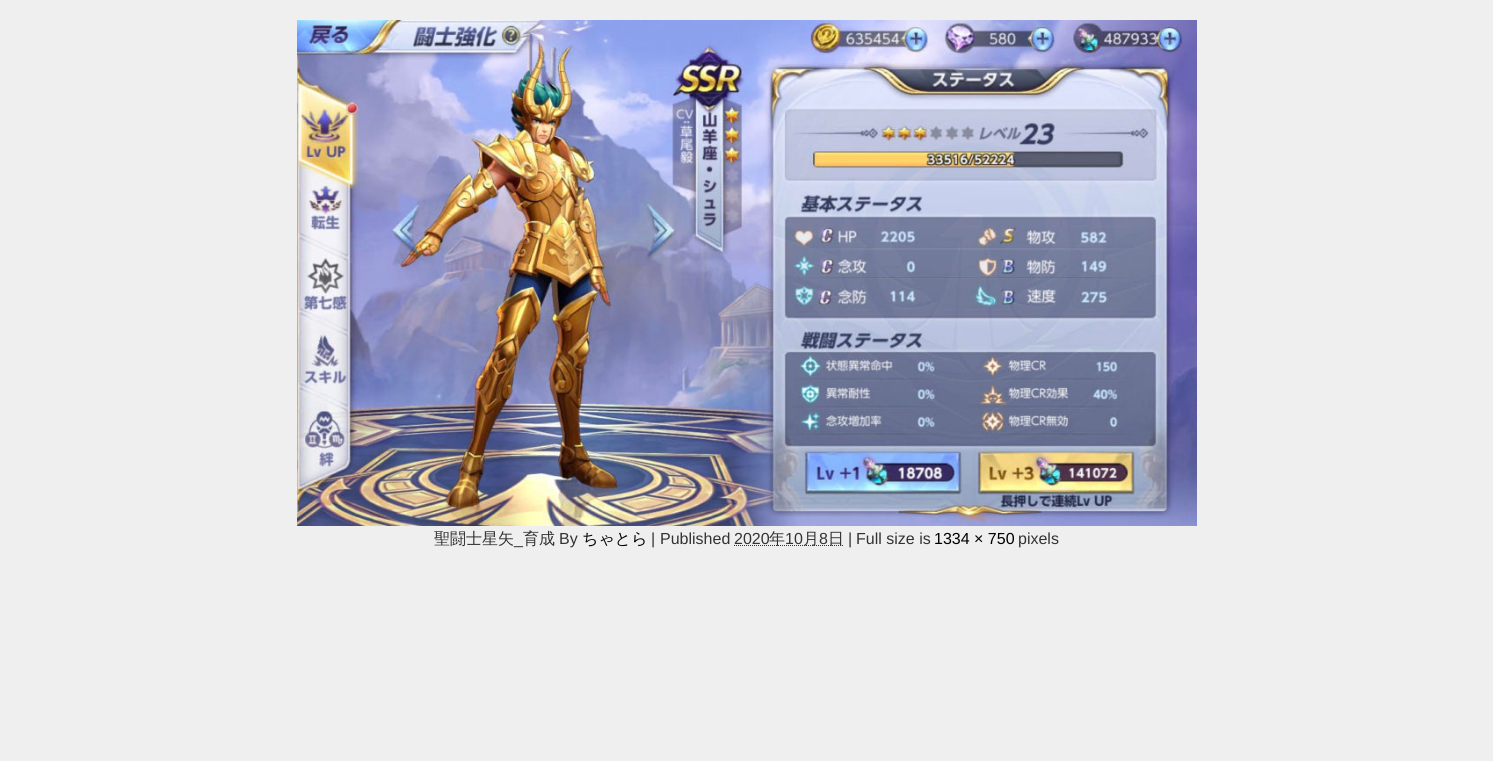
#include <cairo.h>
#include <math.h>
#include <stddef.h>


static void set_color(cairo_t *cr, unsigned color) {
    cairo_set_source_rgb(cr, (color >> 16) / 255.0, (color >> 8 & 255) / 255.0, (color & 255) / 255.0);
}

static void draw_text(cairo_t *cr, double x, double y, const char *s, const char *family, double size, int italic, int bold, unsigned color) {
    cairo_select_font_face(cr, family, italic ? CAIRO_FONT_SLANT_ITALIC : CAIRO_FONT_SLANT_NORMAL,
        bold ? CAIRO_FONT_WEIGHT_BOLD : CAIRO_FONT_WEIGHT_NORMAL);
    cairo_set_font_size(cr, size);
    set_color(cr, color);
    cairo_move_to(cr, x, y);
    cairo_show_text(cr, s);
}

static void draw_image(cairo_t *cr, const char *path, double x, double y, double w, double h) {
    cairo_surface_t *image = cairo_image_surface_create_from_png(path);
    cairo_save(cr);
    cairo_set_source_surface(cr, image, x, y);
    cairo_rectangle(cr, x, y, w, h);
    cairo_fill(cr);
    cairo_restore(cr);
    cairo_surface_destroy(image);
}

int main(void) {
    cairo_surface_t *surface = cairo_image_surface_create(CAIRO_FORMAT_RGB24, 1493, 761);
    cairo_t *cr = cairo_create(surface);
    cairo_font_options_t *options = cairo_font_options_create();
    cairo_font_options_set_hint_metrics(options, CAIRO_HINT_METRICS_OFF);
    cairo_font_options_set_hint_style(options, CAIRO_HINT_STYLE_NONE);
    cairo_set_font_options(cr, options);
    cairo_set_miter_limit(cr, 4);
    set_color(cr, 0xEFEFEF);
    cairo_paint(cr);
    draw_image(cr, "assets/img1.png", 297, 20, 900, 506);
    draw_text(cr, 434, 544, "聖闘士星矢", "WenQuanYi Zen Hei Medium", 16, 0, 0, 0x333333);
    draw_text(cr, 514, 544, "_", "Liberation Sans", 16, 0, 0, 0x333333);
    draw_text(cr, 523, 544, "育成", "WenQuanYi Zen Hei Medium", 16, 0, 0, 0x333333);
    draw_text(cr, 559, 544, "By", "Liberation Sans", 16, 0, 0, 0x333333);
    draw_text(cr, 582, 544, "ちゃとら", "WenQuanYi Zen Hei Medium", 16, 0, 0, 0x000000);
    draw_text(cr, 651, 544, "|", "Liberation Sans", 16, 0, 0, 0x333333);
    draw_text(cr, 660, 544, "Published", "Liberation Sans", 16, 0, 0, 0x333333);
    draw_text(cr, 734, 544, "2020", "Liberation Sans", 16, 0, 0, 0x333333);
    cairo_new_path(cr);
    cairo_move_to(cr, 734, 545.5);
    cairo_line_to(cr, 844, 545.5);
    cairo_set_line_width(cr, 1);
    cairo_set_dash(cr, (double[]){1, 1}, 2, 0);
    cairo_stroke(cr);
    draw_text(cr, 769, 544, "年", "WenQuanYi Zen Hei Medium", 16, 0, 0, 0x333333);
    draw_text(cr, 785, 544, "10", "Liberation Sans", 16, 0, 0, 0x333333);
    draw_text(cr, 803, 544, "月", "WenQuanYi Zen Hei Medium", 16, 0, 0, 0x333333);
    draw_text(cr, 819, 544, "8", "Liberation Sans", 16, 0, 0, 0x333333);
    draw_text(cr, 828, 544, "日", "WenQuanYi Zen Hei Medium", 16, 0, 0, 0x333333);
    draw_text(cr, 848, 544, "|", "Liberation Sans", 16, 0, 0, 0x333333);
    draw_text(cr, 856, 544, "Full size is", "Liberation Sans", 16, 0, 0, 0x333333);
    draw_text(cr, 934, 544, "1334 × 750", "Liberation Sans", 16, 0, 0, 0x000000);
    draw_text(cr, 1018, 544, "pixels", "Liberation Sans", 16, 0, 0, 0x333333);
    cairo_surface_write_to_png(surface, "output.png");
    cairo_font_options_destroy(options);
    cairo_destroy(cr);
    cairo_surface_destroy(surface);
    return 0;
}
